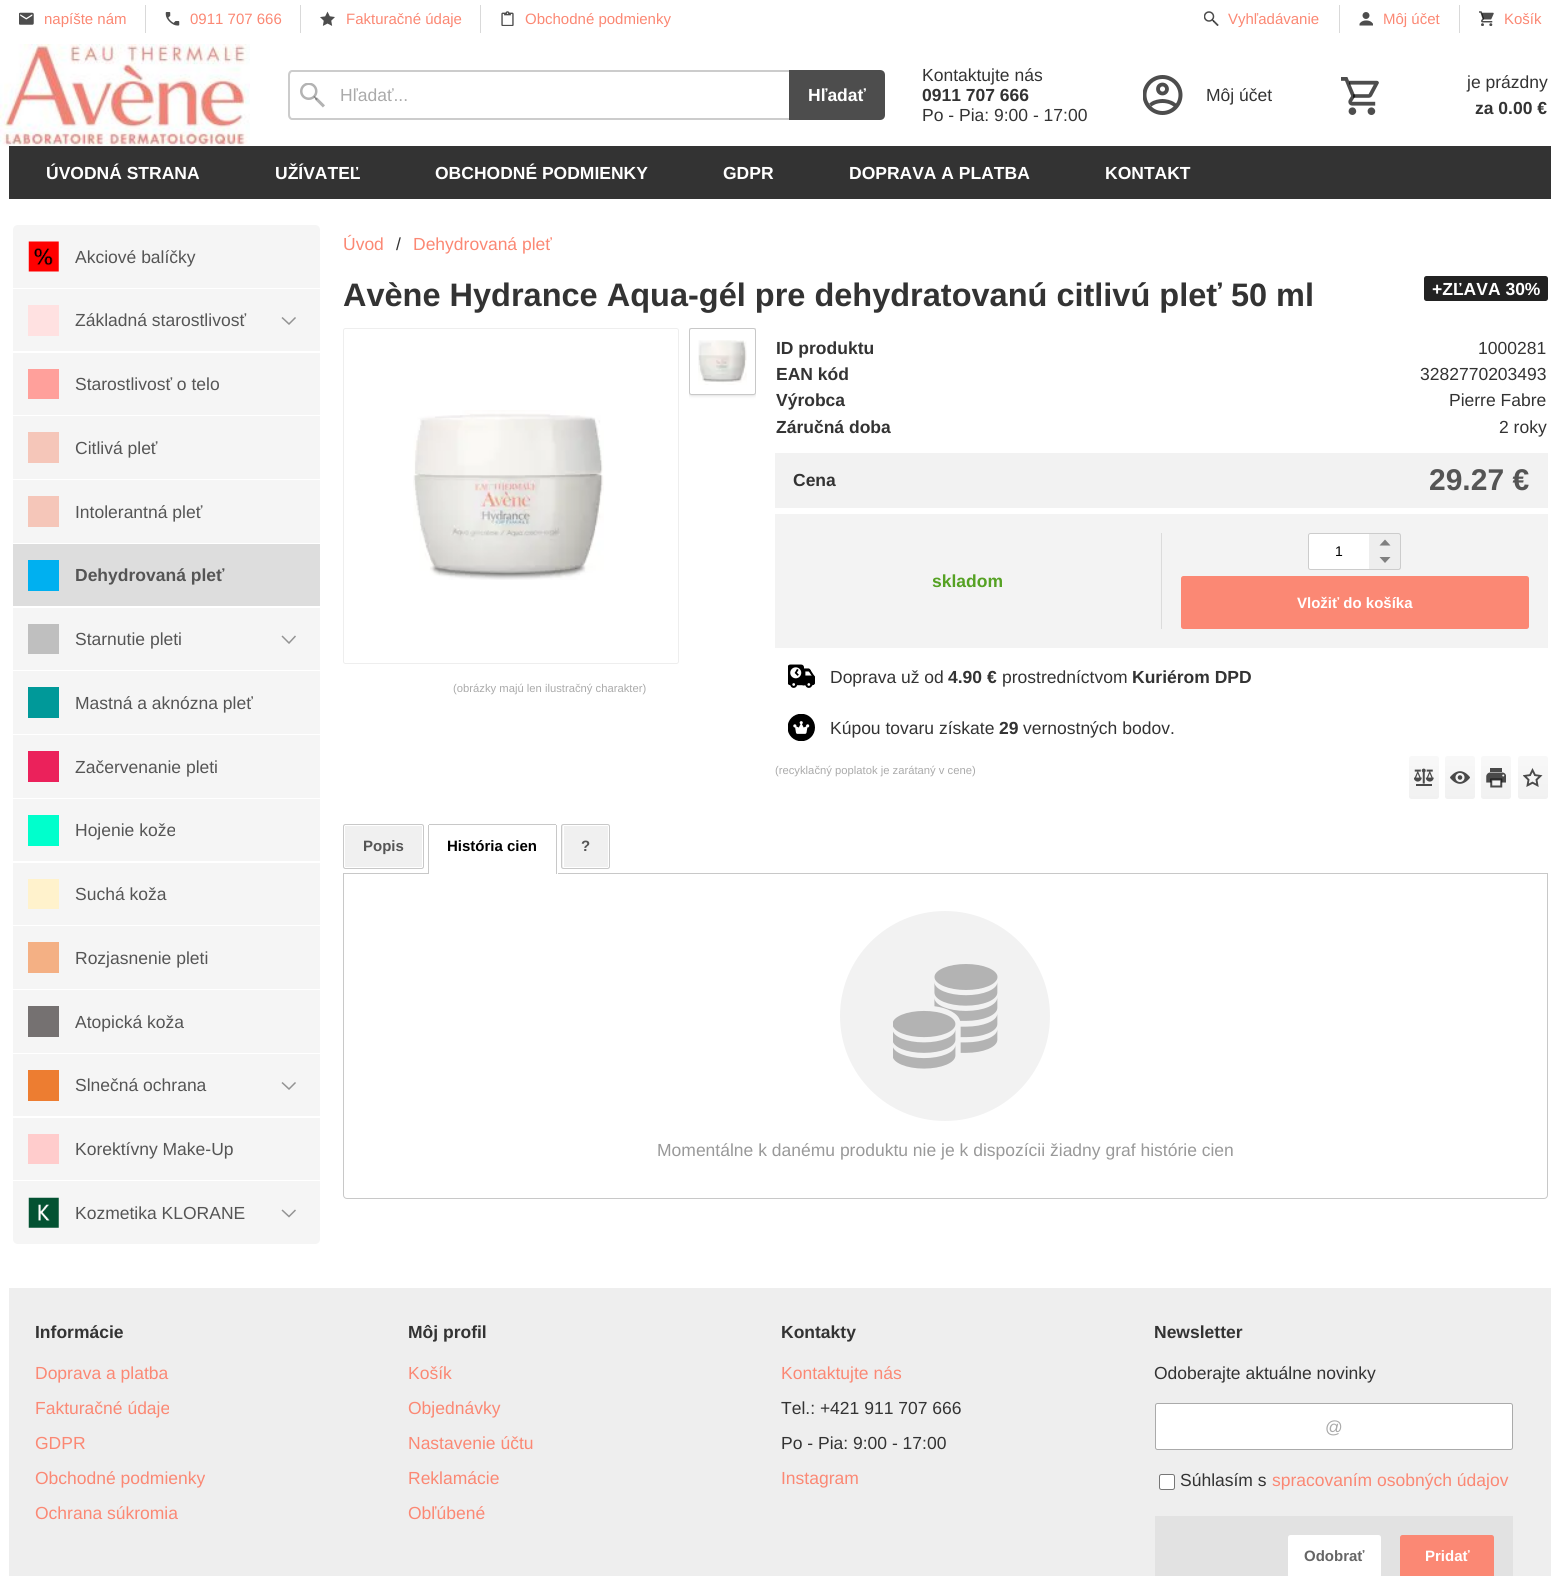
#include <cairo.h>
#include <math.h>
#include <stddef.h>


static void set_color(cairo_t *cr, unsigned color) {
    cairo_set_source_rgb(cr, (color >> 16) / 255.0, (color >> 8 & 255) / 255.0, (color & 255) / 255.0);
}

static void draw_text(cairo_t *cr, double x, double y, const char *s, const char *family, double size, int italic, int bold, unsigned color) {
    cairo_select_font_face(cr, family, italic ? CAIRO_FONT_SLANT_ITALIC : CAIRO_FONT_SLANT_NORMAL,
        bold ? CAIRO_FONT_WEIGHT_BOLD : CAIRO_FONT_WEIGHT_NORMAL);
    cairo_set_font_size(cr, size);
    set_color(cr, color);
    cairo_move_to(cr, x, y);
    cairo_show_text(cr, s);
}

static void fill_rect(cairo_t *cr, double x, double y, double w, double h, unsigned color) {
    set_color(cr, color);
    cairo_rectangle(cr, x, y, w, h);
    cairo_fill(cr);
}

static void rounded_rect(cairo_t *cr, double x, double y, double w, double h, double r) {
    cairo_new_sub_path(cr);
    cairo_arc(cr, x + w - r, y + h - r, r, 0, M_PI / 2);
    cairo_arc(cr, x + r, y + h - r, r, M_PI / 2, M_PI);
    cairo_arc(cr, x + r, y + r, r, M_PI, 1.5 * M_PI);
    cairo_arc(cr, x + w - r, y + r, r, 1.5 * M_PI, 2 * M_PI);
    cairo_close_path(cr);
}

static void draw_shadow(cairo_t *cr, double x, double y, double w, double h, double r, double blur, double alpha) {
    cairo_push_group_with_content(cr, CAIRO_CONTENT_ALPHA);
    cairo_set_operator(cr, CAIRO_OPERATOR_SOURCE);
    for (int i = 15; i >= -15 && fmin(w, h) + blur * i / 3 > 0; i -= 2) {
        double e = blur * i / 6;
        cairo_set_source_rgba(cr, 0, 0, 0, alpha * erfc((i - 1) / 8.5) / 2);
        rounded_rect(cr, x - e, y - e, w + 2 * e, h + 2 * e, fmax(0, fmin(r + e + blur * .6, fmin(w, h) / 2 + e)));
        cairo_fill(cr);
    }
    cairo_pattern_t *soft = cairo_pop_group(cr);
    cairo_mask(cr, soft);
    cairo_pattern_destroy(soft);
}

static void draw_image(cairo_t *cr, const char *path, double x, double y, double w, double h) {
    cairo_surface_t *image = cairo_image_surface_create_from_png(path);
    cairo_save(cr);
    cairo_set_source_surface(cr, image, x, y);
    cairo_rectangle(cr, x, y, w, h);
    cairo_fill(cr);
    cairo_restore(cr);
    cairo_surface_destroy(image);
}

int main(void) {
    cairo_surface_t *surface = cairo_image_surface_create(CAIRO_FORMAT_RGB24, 1560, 1576);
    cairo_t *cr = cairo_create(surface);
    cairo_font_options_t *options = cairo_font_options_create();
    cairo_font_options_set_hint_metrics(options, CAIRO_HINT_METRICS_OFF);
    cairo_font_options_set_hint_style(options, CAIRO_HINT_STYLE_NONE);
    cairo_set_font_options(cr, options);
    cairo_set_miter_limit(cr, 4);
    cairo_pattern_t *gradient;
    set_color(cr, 0xFFFFFF);
    cairo_paint(cr);
    draw_image(cr, "assets/img1.png", 19, 12, 15, 13);
    draw_text(cr, 44, 24, "napíšte nám", "Liberation Sans", 15, 0, 0, 0xFB8874);
    fill_rect(cr, 145, 5, 1, 28, 0xD9D9D9);
    draw_image(cr, "assets/img2.png", 165, 12, 15, 14);
    draw_text(cr, 190, 24, "0911 707 666", "Liberation Sans", 15, 0, 0, 0xFB8874);
    fill_rect(cr, 300, 5, 1, 28, 0xD9D9D9);
    draw_image(cr, "assets/img3.png", 320, 11, 15, 15);
    draw_text(cr, 346, 24, "Fakturačné údaje", "Liberation Sans", 15, 0, 0, 0xFB8874);
    fill_rect(cr, 480, 5, 1, 28, 0xD9D9D9);
    draw_image(cr, "assets/img4.png", 501, 11, 13, 15);
    draw_text(cr, 525, 24, "Obchodné podmienky", "Liberation Sans", 15, 0, 0, 0xFB8874);
    draw_image(cr, "assets/img5.png", 1204, 11, 15, 15);
    draw_text(cr, 1228, 24, "Vyhľadávanie", "Liberation Sans", 15, 0, 0, 0xFB8874);
    fill_rect(cr, 1339, 5, 1, 28, 0xD9D9D9);
    draw_image(cr, "assets/img6.png", 1359, 12, 14, 14);
    draw_text(cr, 1383, 24, "Môj účet", "Liberation Sans", 15, 0, 0, 0xFB8874);
    fill_rect(cr, 1459, 5, 1, 28, 0xD9D9D9);
    draw_image(cr, "assets/img7.png", 1479, 11, 15, 15);
    draw_text(cr, 1504, 24, "Košík", "Liberation Sans", 15, 0, 0, 0xFB8874);
    draw_image(cr, "assets/img8.png", 0, 44, 250, 103);
    set_color(cr, 0xCCCCCC);
    cairo_set_fill_rule(cr, CAIRO_FILL_RULE_EVEN_ODD);
    cairo_new_path(cr);
    cairo_move_to(cr, 292, 70);
    cairo_line_to(cr, 789, 70);
    cairo_line_to(cr, 789, 120);
    cairo_line_to(cr, 292, 120);
    cairo_curve_to(cr, 290, 120, 288, 118, 288, 115);
    cairo_line_to(cr, 288, 75);
    cairo_curve_to(cr, 288, 72, 290, 70, 292, 70);
    cairo_close_path(cr);
    cairo_move_to(cr, 292, 72);
    cairo_line_to(cr, 789, 72);
    cairo_line_to(cr, 789, 118);
    cairo_line_to(cr, 292, 118);
    cairo_curve_to(cr, 291, 118, 290, 116, 290, 115);
    cairo_line_to(cr, 290, 75);
    cairo_curve_to(cr, 290, 74, 291, 72, 292, 72);
    cairo_close_path(cr);
    cairo_fill(cr);
    draw_image(cr, "assets/img9.png", 300, 83, 25, 25);
    draw_text(cr, 340, 101, "Hľadať...", "Liberation Sans", 17.5, 0, 0, 0xAAAAAA);
    set_color(cr, 0x4D4D4D);
    cairo_new_path(cr);
    cairo_move_to(cr, 789, 70);
    cairo_line_to(cr, 880, 70);
    cairo_curve_to(cr, 883, 70, 885, 72, 885, 75);
    cairo_line_to(cr, 885, 115);
    cairo_curve_to(cr, 885, 118, 883, 120, 880, 120);
    cairo_line_to(cr, 789, 120);
    cairo_close_path(cr);
    cairo_fill(cr);
    draw_text(cr, 808, 101, "Hľadať", "Liberation Sans", 17.5, 0, 1, 0xFFFFFF);
    draw_text(cr, 922, 81, "Kontaktujte nás", "Liberation Sans", 17.5, 0, 0, 0x333333);
    draw_text(cr, 922, 101, "0911 707 666", "Liberation Sans", 17.5, 0, 1, 0x333333);
    draw_text(cr, 922, 121, "Po - Pia: 9:00 - 17:00", "Liberation Sans", 17.5, 0, 0, 0x333333);
    draw_image(cr, "assets/img10.png", 1143, 75, 40, 40);
    draw_text(cr, 1206, 101, "Môj účet", "Liberation Sans", 17.5, 0, 0, 0x333333);
    draw_image(cr, "assets/img11.png", 1341, 77, 38, 38);
    draw_text(cr, 1467, 88, "je prázdny", "Liberation Sans", 17.5, 0, 0, 0x333333);
    draw_text(cr, 1475, 114, "za 0.00 €", "Liberation Sans", 17.5, 0, 1, 0x333333);
    fill_rect(cr, 398, 146, 1153, 53, 0x333333);
    fill_rect(cr, 9, 146, 389, 53, 0x333333);
    draw_text(cr, 46, 179, "ÚVODNÁ STRANA", "Liberation Sans", 17.5, 0, 1, 0xFFFFFF);
    draw_text(cr, 275, 179, "UŽÍVATEĽ", "Liberation Sans", 17.5, 0, 1, 0xFFFFFF);
    draw_text(cr, 435, 179, "OBCHODNÉ PODMIENKY", "Liberation Sans", 17.5, 0, 1, 0xFFFFFF);
    draw_text(cr, 723, 179, "GDPR", "Liberation Sans", 17.5, 0, 1, 0xFFFFFF);
    draw_text(cr, 849, 179, "DOPRAVA A PLATBA", "Liberation Sans", 17.5, 0, 1, 0xFFFFFF);
    draw_text(cr, 1105, 179, "KONTAKT", "Liberation Sans", 17.5, 0, 1, 0xFFFFFF);
    set_color(cr, 0xF5F5F5);
    cairo_new_path(cr);
    cairo_move_to(cr, 18, 225);
    cairo_line_to(cr, 315, 225);
    cairo_curve_to(cr, 318, 225, 320, 227, 320, 230);
    cairo_line_to(cr, 320, 288);
    cairo_line_to(cr, 13, 288);
    cairo_line_to(cr, 13, 230);
    cairo_curve_to(cr, 13, 227, 15, 225, 18, 225);
    cairo_close_path(cr);
    cairo_fill(cr);
    draw_image(cr, "assets/img12.png", 28, 241, 31, 31);
    draw_text(cr, 75, 263, "Akciové balíčky", "Liberation Sans", 17.5, 0, 0, 0x555555);
    fill_rect(cr, 13, 289, 307, 62, 0xF5F5F5);
    fill_rect(cr, 28, 305, 31, 31, 0xFFE1E1);
    draw_text(cr, 75, 326, "Základná starostlivosť", "Liberation Sans", 17.5, 0, 0, 0x555555);
    cairo_new_path(cr);
    cairo_move_to(cr, 295.5, 317.5);
    cairo_line_to(cr, 289, 324);
    cairo_line_to(cr, 282, 317.5);
    set_color(cr, 0x939393);
    cairo_set_line_width(cr, 1.5);
    cairo_stroke(cr);
    fill_rect(cr, 13, 353, 307, 62, 0xF5F5F5);
    fill_rect(cr, 28, 369, 31, 30, 0xFFA09B);
    draw_text(cr, 75, 390, "Starostlivosť o telo", "Liberation Sans", 17.5, 0, 0, 0x555555);
    fill_rect(cr, 13, 416, 307, 63, 0xF5F5F5);
    fill_rect(cr, 28, 432, 31, 31, 0xF5C6B9);
    draw_text(cr, 75, 454, "Citlivá pleť", "Liberation Sans", 17.5, 0, 0, 0x555555);
    fill_rect(cr, 13, 480, 307, 63, 0xF5F5F5);
    fill_rect(cr, 28, 496, 31, 31, 0xF5C6B9);
    draw_text(cr, 75, 518, "Intolerantná pleť", "Liberation Sans", 17.5, 0, 0, 0x555555);
    fill_rect(cr, 13, 544, 307, 62, 0xDDDDDD);
    fill_rect(cr, 28, 560, 31, 31, 0x00B0F0);
    draw_text(cr, 75, 581, "Dehydrovaná pleť", "Liberation Sans", 17.5, 0, 1, 0x555555);
    fill_rect(cr, 13, 608, 307, 62, 0xF5F5F5);
    fill_rect(cr, 28, 624, 31, 30, 0xBFBFBF);
    draw_text(cr, 75, 645, "Starnutie pleti", "Liberation Sans", 17.5, 0, 0, 0x555555);
    cairo_new_path(cr);
    cairo_move_to(cr, 295.5, 636);
    cairo_line_to(cr, 289, 643);
    cairo_line_to(cr, 282, 636);
    set_color(cr, 0x939393);
    cairo_stroke(cr);
    fill_rect(cr, 13, 671, 307, 63, 0xF5F5F5);
    fill_rect(cr, 28, 687, 31, 31, 0x009999);
    draw_text(cr, 75, 709, "Mastná a aknózna pleť", "Liberation Sans", 17.5, 0, 0, 0x555555);
    fill_rect(cr, 13, 735, 307, 63, 0xF5F5F5);
    fill_rect(cr, 28, 751, 31, 31, 0xEB215B);
    draw_text(cr, 75, 773, "Začervenanie pleti", "Liberation Sans", 17.5, 0, 0, 0x555555);
    fill_rect(cr, 13, 799, 307, 62, 0xF5F5F5);
    fill_rect(cr, 28, 815, 31, 31, 0x00FFCC);
    draw_text(cr, 75, 836, "Hojenie kože", "Liberation Sans", 17.5, 0, 0, 0x555555);
    fill_rect(cr, 13, 863, 307, 62, 0xF5F5F5);
    fill_rect(cr, 28, 879, 31, 30, 0xFFF2CC);
    draw_text(cr, 75, 900, "Suchá koža", "Liberation Sans", 17.5, 0, 0, 0x555555);
    fill_rect(cr, 13, 926, 307, 63, 0xF5F5F5);
    fill_rect(cr, 28, 942, 31, 31, 0xF4B084);
    draw_text(cr, 75, 964, "Rozjasnenie pleti", "Liberation Sans", 17.5, 0, 0, 0x555555);
    fill_rect(cr, 13, 990, 307, 63, 0xF5F5F5);
    fill_rect(cr, 28, 1006, 31, 31, 0x757171);
    draw_text(cr, 75, 1028, "Atopická koža", "Liberation Sans", 17.5, 0, 0, 0x555555);
    fill_rect(cr, 13, 1054, 307, 62, 0xF5F5F5);
    fill_rect(cr, 28, 1070, 31, 31, 0xED7D31);
    draw_text(cr, 75, 1091, "Slnečná ochrana", "Liberation Sans", 17.5, 0, 0, 0x555555);
    cairo_new_path(cr);
    cairo_move_to(cr, 295.5, 1082.5);
    cairo_line_to(cr, 289, 1089);
    cairo_line_to(cr, 282, 1082.5);
    set_color(cr, 0x939393);
    cairo_stroke(cr);
    fill_rect(cr, 13, 1118, 307, 62, 0xF5F5F5);
    fill_rect(cr, 28, 1134, 31, 30, 0xFFCCCC);
    draw_text(cr, 75, 1155, "Korektívny Make-Up", "Liberation Sans", 17.5, 0, 0, 0x555555);
    set_color(cr, 0xF5F5F5);
    cairo_new_path(cr);
    cairo_move_to(cr, 13, 1181);
    cairo_line_to(cr, 320, 1181);
    cairo_line_to(cr, 320, 1239);
    cairo_curve_to(cr, 320, 1242, 318, 1244, 315, 1244);
    cairo_line_to(cr, 18, 1244);
    cairo_curve_to(cr, 15, 1244, 13, 1242, 13, 1239);
    cairo_close_path(cr);
    cairo_fill(cr);
    draw_image(cr, "assets/img13.png", 28, 1197, 31, 31);
    draw_text(cr, 75, 1219, "Kozmetika KLORANE", "Liberation Sans", 17.5, 0, 0, 0x555555);
    cairo_new_path(cr);
    cairo_move_to(cr, 295.5, 1210);
    cairo_line_to(cr, 289, 1216.5);
    cairo_line_to(cr, 282, 1210);
    set_color(cr, 0x939393);
    cairo_stroke(cr);
    draw_text(cr, 343, 250, "Úvod", "Liberation Sans", 17.5, 0, 0, 0xFB8874);
    draw_text(cr, 396, 250, "/", "Liberation Sans", 17.5, 0, 0, 0x333333);
    draw_text(cr, 413, 250, "Dehydrovaná pleť", "Liberation Sans", 17.5, 0, 0, 0xFB8874);
    draw_text(cr, 343, 306, "Avène Hydrance Aqua-gél pre dehydratovanú citlivú pleť 50 ml", "Liberation Sans", 32.5, 0, 1, 0x333333);
    set_color(cr, 0x222222);
    rounded_rect(cr, 1424, 276, 124, 25, 2.5);
    cairo_fill(cr);
    draw_text(cr, 1432, 295, "+ZĽAVA 30%", "Liberation Sans", 17.5, 0, 1, 0xFFFFFF);
    rounded_rect(cr, 343.5, 328.5, 335, 335, 2);
    set_color(cr, 0xEEEEEE);
    cairo_set_line_width(cr, 1);
    cairo_stroke(cr);
    draw_image(cr, "assets/img14.png", 413, 410, 191, 170);
    cairo_save(cr);
    cairo_set_fill_rule(cr, CAIRO_FILL_RULE_WINDING);
    cairo_rectangle(cr, 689, 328, 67, 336);
    cairo_clip(cr);
    set_color(cr, 0xCCCCCC);
    draw_shadow(cr, 689, 328, 67, 67, 2.5, 2, 1);
    cairo_restore(cr);
    set_color(cr, 0xFFFFFF);
    rounded_rect(cr, 689.5, 328.5, 66, 66, 2);
    cairo_fill_preserve(cr);
    set_color(cr, 0xC8C8C8);
    cairo_stroke(cr);
    draw_image(cr, "assets/img15.png", 698, 340, 49, 45);
    draw_text(cr, 453, 692, "(obrázky majú len ilustračný charakter)", "Liberation Sans", 11.25, 0, 0, 0xAAAAAA);
    draw_text(cr, 776, 354, "ID produktu", "Liberation Sans", 17.5, 0, 1, 0x333333);
    draw_text(cr, 1478, 354, "1000281", "Liberation Sans", 17.5, 0, 0, 0x333333);
    draw_text(cr, 776, 380, "EAN kód", "Liberation Sans", 17.5, 0, 1, 0x333333);
    draw_text(cr, 1420, 380, "3282770203493", "Liberation Sans", 17.5, 0, 0, 0x333333);
    draw_text(cr, 776, 406, "Výrobca", "Liberation Sans", 17.5, 0, 1, 0x333333);
    draw_text(cr, 1449, 406, "Pierre Fabre", "Liberation Sans", 17.5, 0, 0, 0x333333);
    draw_text(cr, 776, 433, "Záručná doba", "Liberation Sans", 17.5, 0, 1, 0x333333);
    draw_text(cr, 1499, 433, "2 roky", "Liberation Sans", 17.5, 0, 0, 0x333333);
    fill_rect(cr, 775, 453, 773, 55, 0xF2F2F2);
    draw_text(cr, 793, 486, "Cena", "Liberation Sans", 17.5, 0, 1, 0x333333);
    draw_text(cr, 1429, 490, "29.27 €", "Liberation Sans", 30, 0, 1, 0x555555);
    fill_rect(cr, 775, 514, 773, 134, 0xF3F3F3);
    draw_text(cr, 932, 587, "skladom", "Liberation Sans", 17.5, 0, 1, 0x55A123);
    fill_rect(cr, 1161, 533, 1, 96, 0xDBDBDB);
    set_color(cr, 0xFFFFFF);
    rounded_rect(cr, 1308.5, 533.5, 92, 36, 2);
    cairo_fill_preserve(cr);
    set_color(cr, 0xCCCCCC);
    cairo_stroke(cr);
    draw_text(cr, 1335, 556, "1", "Liberation Sans", 14, 0, 0, 0x000000);
    cairo_set_source_rgba(cr, 0, 0, 0, 0.07);
    cairo_rectangle(cr, 1369, 534, 31, 17);
    cairo_fill(cr);
    set_color(cr, 0x808080);
    cairo_set_fill_rule(cr, CAIRO_FILL_RULE_WINDING);
    cairo_new_path(cr);
    cairo_move_to(cr, 1390.5, 545.5);
    cairo_line_to(cr, 1385, 539.5);
    cairo_line_to(cr, 1379.5, 545.5);
    cairo_close_path(cr);
    cairo_fill(cr);
    cairo_set_source_rgba(cr, 0, 0, 0, 0.07);
    cairo_rectangle(cr, 1369, 551, 31, 18);
    cairo_fill(cr);
    set_color(cr, 0x808080);
    cairo_new_path(cr);
    cairo_move_to(cr, 1379.5, 557);
    cairo_line_to(cr, 1385, 563);
    cairo_line_to(cr, 1390.5, 557);
    cairo_close_path(cr);
    cairo_fill(cr);
    set_color(cr, 0xFB8874);
    rounded_rect(cr, 1181, 576, 348, 53, 2.5);
    cairo_fill(cr);
    draw_text(cr, 1297, 608, "Vložiť do košíka", "Liberation Sans", 15, 0, 1, 0xFFFFFF);
    draw_image(cr, "assets/img16.png", 788, 664, 27, 24);
    draw_text(cr, 830, 683, "Doprava už od", "Liberation Sans", 17.5, 0, 0, 0x333333);
    draw_text(cr, 948, 683, "4.90 €", "Liberation Sans", 17.5, 0, 1, 0x333333);
    draw_text(cr, 1002, 683, "prostredníctvom", "Liberation Sans", 17.5, 0, 0, 0x333333);
    draw_text(cr, 1132, 683, "Kuriérom DPD", "Liberation Sans", 17.5, 0, 1, 0x333333);
    draw_image(cr, "assets/img17.png", 788, 714, 27, 27);
    draw_text(cr, 830, 734, "Kúpou tovaru získate", "Liberation Sans", 17.5, 0, 0, 0x333333);
    draw_text(cr, 999, 734, "29", "Liberation Sans", 17.5, 0, 1, 0x333333);
    draw_text(cr, 1023, 734, "vernostných bodov.", "Liberation Sans", 17.5, 0, 0, 0x333333);
    draw_text(cr, 775, 774, "(recyklačný poplatok je zarátaný v cene)", "Liberation Sans", 11.25, 0, 0, 0xAAAAAA);
    gradient = cairo_pattern_create_linear(1424, 756, 1424, 799);
    cairo_pattern_add_color_stop_rgba(gradient, 0, 0.973, 0.973, 0.973, 1);
    cairo_pattern_add_color_stop_rgba(gradient, 1, 0.945, 0.945, 0.945, 1);
    cairo_set_source(cr, gradient);
    cairo_pattern_destroy(gradient);
    rounded_rect(cr, 1409, 756, 30, 43, 2.5);
    cairo_fill(cr);
    draw_image(cr, "assets/img18.png", 1414, 768, 20, 18);
    gradient = cairo_pattern_create_linear(1460, 756, 1460, 799);
    cairo_pattern_add_color_stop_rgba(gradient, 0, 0.973, 0.973, 0.973, 1);
    cairo_pattern_add_color_stop_rgba(gradient, 1, 0.945, 0.945, 0.945, 1);
    cairo_set_source(cr, gradient);
    cairo_pattern_destroy(gradient);
    rounded_rect(cr, 1445, 756, 30, 43, 2.5);
    cairo_fill(cr);
    draw_image(cr, "assets/img19.png", 1450, 771, 20, 13);
    gradient = cairo_pattern_create_linear(1496, 756, 1496, 799);
    cairo_pattern_add_color_stop_rgba(gradient, 0, 0.973, 0.973, 0.973, 1);
    cairo_pattern_add_color_stop_rgba(gradient, 1, 0.945, 0.945, 0.945, 1);
    cairo_set_source(cr, gradient);
    cairo_pattern_destroy(gradient);
    rounded_rect(cr, 1481, 756, 30, 43, 2.5);
    cairo_fill(cr);
    draw_image(cr, "assets/img20.png", 1486, 768, 20, 20);
    gradient = cairo_pattern_create_linear(1533, 756, 1533, 799);
    cairo_pattern_add_color_stop_rgba(gradient, 0, 0.973, 0.973, 0.973, 1);
    cairo_pattern_add_color_stop_rgba(gradient, 1, 0.945, 0.945, 0.945, 1);
    cairo_set_source(cr, gradient);
    cairo_pattern_destroy(gradient);
    rounded_rect(cr, 1518, 756, 30, 43, 2.5);
    cairo_fill(cr);
    draw_image(cr, "assets/img21.png", 1523, 768, 20, 19);
    set_color(cr, 0xF0F0F0);
    rounded_rect(cr, 343, 824, 81, 45, 2.5);
    cairo_fill(cr);
    rounded_rect(cr, 344.5, 825.5, 78, 42, 0.5);
    set_color(cr, 0xFFFFFF);
    cairo_stroke(cr);
    rounded_rect(cr, 343.5, 824.5, 80, 44, 2);
    set_color(cr, 0xC8C8C8);
    cairo_stroke(cr);
    draw_text(cr, 363, 851, "Popis", "Liberation Sans", 15, 0, 1, 0x555555);
    cairo_new_path(cr);
    cairo_move_to(cr, 343.5, 873.5);
    cairo_line_to(cr, 1547.5, 873.5);
    cairo_line_to(cr, 1547.5, 1195);
    cairo_curve_to(cr, 1547.5, 1197, 1546, 1198.5, 1544, 1198.5);
    cairo_line_to(cr, 347, 1198.5);
    cairo_curve_to(cr, 345, 1198.5, 343.5, 1197, 343.5, 1195);
    cairo_close_path(cr);
    set_color(cr, 0xC8C8C8);
    cairo_stroke(cr);
    set_color(cr, 0xFFFFFF);
    cairo_new_path(cr);
    cairo_move_to(cr, 430.5, 824);
    cairo_line_to(cr, 555.5, 824);
    cairo_curve_to(cr, 557, 824, 558, 825, 558, 826.5);
    cairo_line_to(cr, 558, 874);
    cairo_line_to(cr, 428, 874);
    cairo_line_to(cr, 428, 826.5);
    cairo_curve_to(cr, 428, 825, 429, 824, 430.5, 824);
    cairo_close_path(cr);
    cairo_fill(cr);
    fill_rect(cr, 429, 824, 127, 1, 0xC8C8C8);
    fill_rect(cr, 556, 825, 1, 49, 0xC8C8C8);
    fill_rect(cr, 428, 825, 1, 49, 0xC8C8C8);
    draw_text(cr, 447, 851, "História cien", "Liberation Sans", 15, 0, 1, 0x000000);
    set_color(cr, 0xF0F0F0);
    rounded_rect(cr, 561, 824, 49, 45, 2.5);
    cairo_fill(cr);
    rounded_rect(cr, 563.5, 825.5, 45, 42, 0.5);
    set_color(cr, 0xFFFFFF);
    cairo_stroke(cr);
    rounded_rect(cr, 561.5, 824.5, 48, 44, 2);
    set_color(cr, 0xC8C8C8);
    cairo_stroke(cr);
    draw_text(cr, 581, 851, "?", "Liberation Sans", 15, 0, 1, 0x555555);
    set_color(cr, 0xF2F2F2);
    cairo_new_path(cr);
    cairo_arc(cr, 945, 1016, 105, 0, 2 * M_PI);
    cairo_fill(cr);
    draw_image(cr, "assets/img22.png", 893, 964, 105, 105);
    draw_text(cr, 657, 1156, "Momentálne k danému produktu nie je k dispozícii žiadny graf histórie cien", "Liberation Sans", 17.5, 0, 0, 0x999999);
    fill_rect(cr, 9, 1288, 1542, 288, 0xEEEEEE);
    draw_text(cr, 35, 1338, "Informácie", "Liberation Sans", 17.5, 0, 1, 0x333333);
    draw_text(cr, 35, 1379, "Doprava a platba", "Liberation Sans", 17.5, 0, 0, 0xFB8874);
    draw_text(cr, 35, 1414, "Fakturačné údaje", "Liberation Sans", 17.5, 0, 0, 0xFB8874);
    draw_text(cr, 35, 1449, "GDPR", "Liberation Sans", 17.5, 0, 0, 0xFB8874);
    draw_text(cr, 35, 1484, "Obchodné podmienky", "Liberation Sans", 17.5, 0, 0, 0xFB8874);
    draw_text(cr, 35, 1519, "Ochrana súkromia", "Liberation Sans", 17.5, 0, 0, 0xFB8874);
    draw_text(cr, 408, 1338, "Môj profil", "Liberation Sans", 17.5, 0, 1, 0x333333);
    draw_text(cr, 408, 1379, "Košík", "Liberation Sans", 17.5, 0, 0, 0xFB8874);
    draw_text(cr, 408, 1414, "Objednávky", "Liberation Sans", 17.5, 0, 0, 0xFB8874);
    draw_text(cr, 408, 1449, "Nastavenie účtu", "Liberation Sans", 17.5, 0, 0, 0xFB8874);
    draw_text(cr, 408, 1484, "Reklamácie", "Liberation Sans", 17.5, 0, 0, 0xFB8874);
    draw_text(cr, 408, 1519, "Obľúbené", "Liberation Sans", 17.5, 0, 0, 0xFB8874);
    draw_text(cr, 781, 1338, "Kontakty", "Liberation Sans", 17.5, 0, 1, 0x333333);
    draw_text(cr, 781, 1379, "Kontaktujte nás", "Liberation Sans", 17.5, 0, 0, 0xFB8874);
    draw_text(cr, 781, 1414, "Tel.: +421 911 707 666", "Liberation Sans", 17.5, 0, 0, 0x333333);
    draw_text(cr, 781, 1449, "Po - Pia: 9:00 - 17:00", "Liberation Sans", 17.5, 0, 0, 0x333333);
    draw_text(cr, 781, 1484, "Instagram", "Liberation Sans", 17.5, 0, 0, 0xFB8874);
    draw_text(cr, 1154, 1338, "Newsletter", "Liberation Sans", 17.5, 0, 1, 0x333333);
    draw_text(cr, 1154, 1379, "Odoberajte aktuálne novinky", "Liberation Sans", 17.5, 0, 0, 0x333333);
    set_color(cr, 0xFFFFFF);
    rounded_rect(cr, 1155.5, 1403.5, 357, 46, 2);
    cairo_fill_preserve(cr);
    set_color(cr, 0xAAAAAA);
    cairo_stroke(cr);
    draw_text(cr, 1325, 1433, "@", "Liberation Sans", 17.5, 0, 0, 0xAAAAAA);
    set_color(cr, 0xFFFFFF);
    rounded_rect(cr, 1159.5, 1474.5, 15, 15, 2);
    cairo_fill_preserve(cr);
    set_color(cr, 0x767676);
    cairo_stroke(cr);
    draw_text(cr, 1180, 1486, "Súhlasím s", "Liberation Sans", 17.5, 0, 0, 0x333333);
    draw_text(cr, 1272, 1486, "spracovaním osobných údajov", "Liberation Sans", 17.5, 0, 0, 0xFB8874);
    fill_rect(cr, 1155, 1516, 358, 60, 0xE2E2E2);
    set_color(cr, 0xFFFFFF);
    rounded_rect(cr, 1288, 1535, 93, 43, 2.5);
    cairo_fill(cr);
    draw_text(cr, 1304, 1561, "Odobrať", "Liberation Sans", 15, 0, 1, 0x666666);
    set_color(cr, 0xFB8874);
    rounded_rect(cr, 1400, 1535, 94, 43, 2.5);
    cairo_fill(cr);
    draw_text(cr, 1425, 1561, "Pridať", "Liberation Sans", 15, 0, 1, 0xFFFFFF);
    cairo_surface_write_to_png(surface, "output.png");
    cairo_font_options_destroy(options);
    cairo_destroy(cr);
    cairo_surface_destroy(surface);
    return 0;
}
